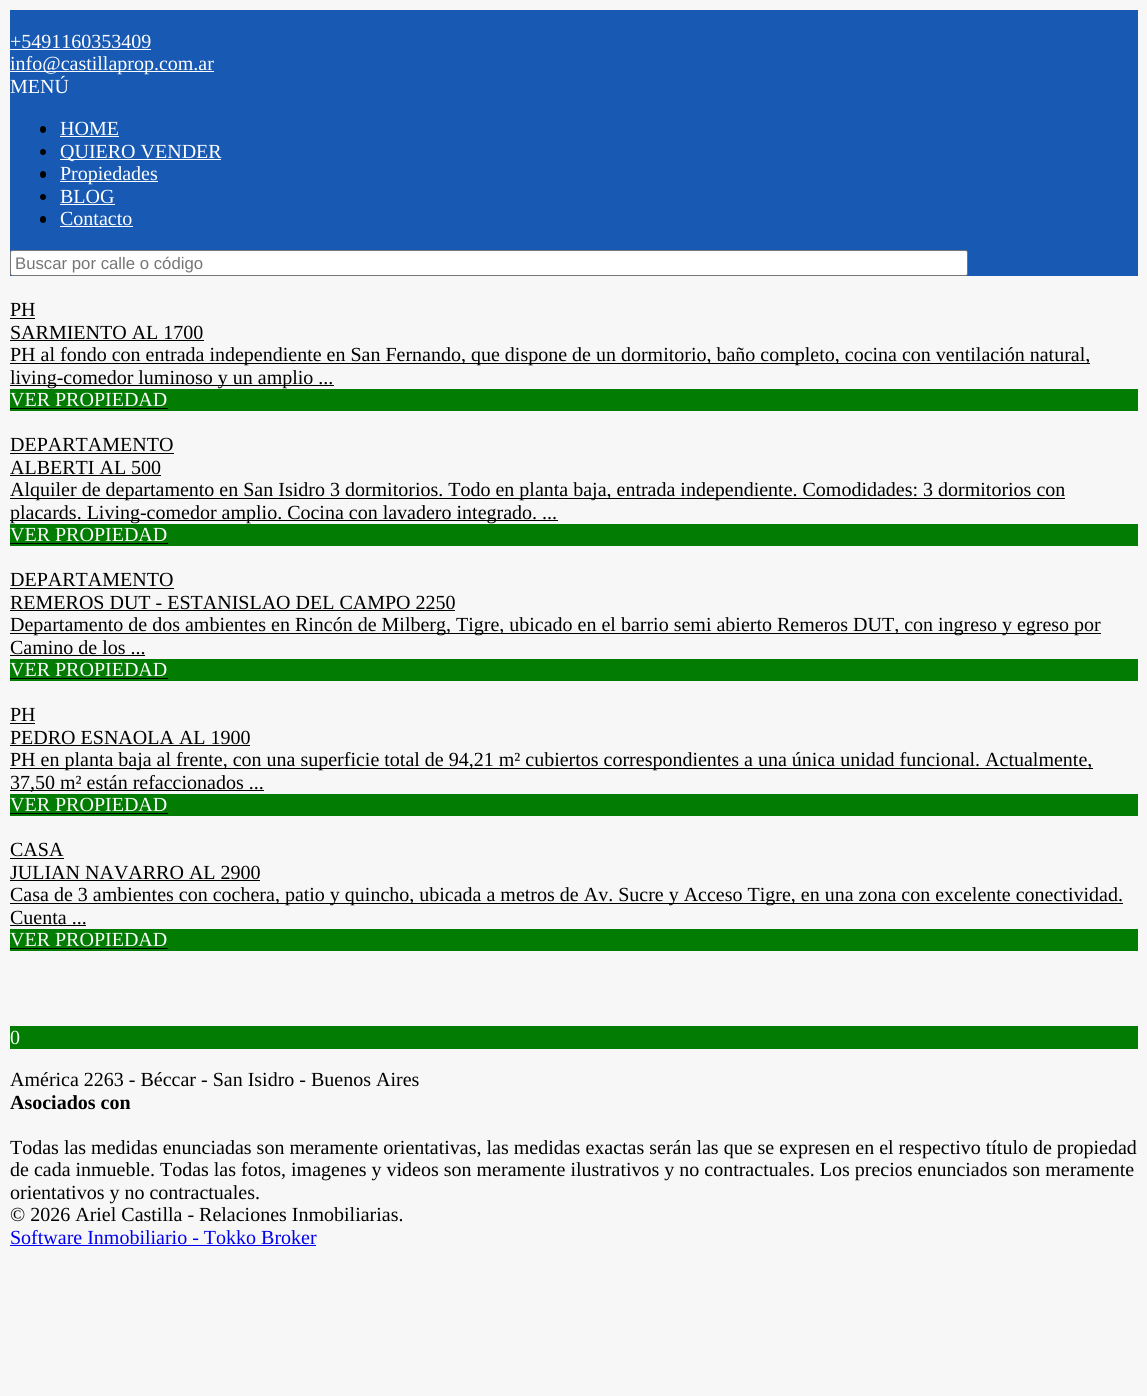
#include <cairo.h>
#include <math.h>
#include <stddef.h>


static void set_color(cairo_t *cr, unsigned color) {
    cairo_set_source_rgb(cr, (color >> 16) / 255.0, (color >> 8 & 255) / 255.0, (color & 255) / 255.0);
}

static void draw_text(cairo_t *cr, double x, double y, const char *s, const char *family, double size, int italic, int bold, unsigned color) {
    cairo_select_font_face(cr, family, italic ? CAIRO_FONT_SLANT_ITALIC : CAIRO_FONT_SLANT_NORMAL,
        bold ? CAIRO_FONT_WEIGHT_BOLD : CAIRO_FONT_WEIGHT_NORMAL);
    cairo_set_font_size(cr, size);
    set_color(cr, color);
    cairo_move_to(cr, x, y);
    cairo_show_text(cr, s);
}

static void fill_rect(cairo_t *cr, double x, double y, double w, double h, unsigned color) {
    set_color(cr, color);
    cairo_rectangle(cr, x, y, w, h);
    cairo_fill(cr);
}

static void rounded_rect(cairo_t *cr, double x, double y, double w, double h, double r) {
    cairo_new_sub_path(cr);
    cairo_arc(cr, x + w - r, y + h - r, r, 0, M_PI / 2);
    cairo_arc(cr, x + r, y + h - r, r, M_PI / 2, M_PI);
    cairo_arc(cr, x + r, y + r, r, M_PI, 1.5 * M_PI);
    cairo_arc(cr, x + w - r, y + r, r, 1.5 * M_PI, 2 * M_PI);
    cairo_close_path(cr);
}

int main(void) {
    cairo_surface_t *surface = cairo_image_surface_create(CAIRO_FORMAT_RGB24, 1147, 1396);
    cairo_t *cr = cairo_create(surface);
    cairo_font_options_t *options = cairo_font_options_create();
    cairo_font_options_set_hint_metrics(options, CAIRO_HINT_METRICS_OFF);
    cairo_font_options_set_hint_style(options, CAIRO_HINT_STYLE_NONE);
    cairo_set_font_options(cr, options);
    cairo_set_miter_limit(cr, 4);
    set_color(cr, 0xF7F7F7);
    cairo_paint(cr);
    fill_rect(cr, 10, 10, 1128, 266, 0x1859B3);
    draw_text(cr, 10, 48, "+5491160353409", "Liberation Serif", 20, 0, 0, 0xFFFFFF);
    fill_rect(cr, 10, 49, 141, 1, 0xFFFFFF);
    fill_rect(cr, 10, 71, 204, 1, 0xFFFFFF);
    draw_text(cr, 10, 70, "info@castillaprop.com.ar", "Liberation Serif", 20, 0, 0, 0xFFFFFF);
    draw_text(cr, 10, 93, "MENÚ", "Liberation Serif", 20, 0, 0, 0xFFFFFF);
    set_color(cr, 0x000000);
    rounded_rect(cr, 40, 126, 6, 7, 3);
    cairo_fill(cr);
    draw_text(cr, 60, 135, "HOME", "Liberation Serif", 20, 0, 0, 0xFFFFFF);
    fill_rect(cr, 60, 136, 59, 1, 0xFFFFFF);
    set_color(cr, 0x000000);
    cairo_new_path(cr);
    cairo_arc(cr, 43, 152, 3, 0, 2 * M_PI);
    cairo_fill(cr);
    fill_rect(cr, 60, 159, 161, 1, 0xFFFFFF);
    draw_text(cr, 60, 158, "QUIERO VENDER", "Liberation Serif", 20, 0, 0, 0xFFFFFF);
    set_color(cr, 0x000000);
    rounded_rect(cr, 40, 171, 6, 7, 3);
    cairo_fill(cr);
    fill_rect(cr, 60, 181, 98, 1, 0xFFFFFF);
    draw_text(cr, 60, 180, "Propiedades", "Liberation Serif", 20, 0, 0, 0xFFFFFF);
    set_color(cr, 0x000000);
    cairo_new_path(cr);
    cairo_arc(cr, 43, 197, 3, 0, 2 * M_PI);
    cairo_fill(cr);
    draw_text(cr, 60, 203, "BLOG", "Liberation Serif", 20, 0, 0, 0xFFFFFF);
    fill_rect(cr, 60, 204, 55, 1, 0xFFFFFF);
    set_color(cr, 0x000000);
    rounded_rect(cr, 40, 216, 6, 7, 3);
    cairo_fill(cr);
    draw_text(cr, 60, 225, "Contacto", "Liberation Serif", 20, 0, 0, 0xFFFFFF);
    fill_rect(cr, 60, 226, 73, 1, 0xFFFFFF);
    rounded_rect(cr, 10.5, 250.5, 957, 25, 2);
    cairo_fill_preserve(cr);
    set_color(cr, 0x767676);
    cairo_set_line_width(cr, 1);
    cairo_stroke(cr);
    draw_text(cr, 15, 269, "Buscar por calle o código", "Liberation Sans", 16.75, 0, 0, 0x757575);
    draw_text(cr, 10, 316, "PH", "Liberation Serif", 20, 0, 0, 0x000000);
    fill_rect(cr, 10, 318, 25, 1, 0x000000);
    draw_text(cr, 10, 339, "SARMIENTO AL 1700", "Liberation Serif", 20, 0, 0, 0x000000);
    fill_rect(cr, 10, 340, 194, 1, 0x000000);
    fill_rect(cr, 10, 363, 1080, 1, 0x000000);
    draw_text(cr, 10, 361, "PH al fondo con entrada independiente en San Fernando, que dispone de un dormitorio, baño completo, cocina con ventilación natural,", "Liberation Serif", 20, 0, 0, 0x000000);
    fill_rect(cr, 10, 385, 324, 1, 0x000000);
    draw_text(cr, 10, 384, "living-comedor luminoso y un amplio ...", "Liberation Serif", 20, 0, 0, 0x000000);
    fill_rect(cr, 10, 389, 1128, 22, 0x027C03);
    draw_text(cr, 10, 406, "VER PROPIEDAD", "Liberation Serif", 20, 0, 0, 0xFFFFFF);
    fill_rect(cr, 10, 408, 158, 1, 0x000000);
    draw_text(cr, 10, 451, "DEPARTAMENTO", "Liberation Serif", 20, 0, 0, 0x000000);
    fill_rect(cr, 10, 453, 164, 1, 0x000000);
    draw_text(cr, 10, 474, "ALBERTI AL 500", "Liberation Serif", 20, 0, 0, 0x000000);
    fill_rect(cr, 10, 475, 151, 1, 0x000000);
    fill_rect(cr, 10, 498, 1055, 1, 0x000000);
    draw_text(cr, 10, 496, "Alquiler de departamento en San Isidro 3 dormitorios. Todo en planta baja, entrada independiente. Comodidades: 3 dormitorios con", "Liberation Serif", 20, 0, 0, 0x000000);
    fill_rect(cr, 10, 520, 548, 1, 0x000000);
    draw_text(cr, 10, 519, "placards. Living-comedor amplio. Cocina con lavadero integrado. ...", "Liberation Serif", 20, 0, 0, 0x000000);
    fill_rect(cr, 10, 524, 1128, 22, 0x027C03);
    draw_text(cr, 10, 541, "VER PROPIEDAD", "Liberation Serif", 20, 0, 0, 0xFFFFFF);
    fill_rect(cr, 10, 543, 158, 1, 0x000000);
    draw_text(cr, 10, 586, "DEPARTAMENTO", "Liberation Serif", 20, 0, 0, 0x000000);
    fill_rect(cr, 10, 588, 164, 1, 0x000000);
    draw_text(cr, 10, 609, "REMEROS DUT - ESTANISLAO DEL CAMPO 2250", "Liberation Serif", 20, 0, 0, 0x000000);
    fill_rect(cr, 10, 610, 445, 1, 0x000000);
    fill_rect(cr, 10, 633, 1091, 1, 0x000000);
    draw_text(cr, 10, 631, "Departamento de dos ambientes en Rincón de Milberg, Tigre, ubicado en el barrio semi abierto Remeros DUT, con ingreso y egreso por", "Liberation Serif", 20, 0, 0, 0x000000);
    draw_text(cr, 10, 654, "Camino de los ...", "Liberation Serif", 20, 0, 0, 0x000000);
    fill_rect(cr, 10, 655, 135, 1, 0x000000);
    fill_rect(cr, 10, 659, 1128, 22, 0x027C03);
    draw_text(cr, 10, 676, "VER PROPIEDAD", "Liberation Serif", 20, 0, 0, 0xFFFFFF);
    fill_rect(cr, 10, 678, 158, 1, 0x000000);
    draw_text(cr, 10, 721, "PH", "Liberation Serif", 20, 0, 0, 0x000000);
    fill_rect(cr, 10, 723, 25, 1, 0x000000);
    draw_text(cr, 10, 744, "PEDRO ESNAOLA AL 1900", "Liberation Serif", 20, 0, 0, 0x000000);
    fill_rect(cr, 10, 745, 240, 1, 0x000000);
    fill_rect(cr, 10, 768, 1083, 1, 0x000000);
    draw_text(cr, 10, 766, "PH en planta baja al frente, con una superficie total de 94,21 m² cubiertos correspondientes a una única unidad funcional. Actualmente,", "Liberation Serif", 20, 0, 0, 0x000000);
    fill_rect(cr, 10, 790, 254, 1, 0x000000);
    draw_text(cr, 10, 789, "37,50 m² están refaccionados ...", "Liberation Serif", 20, 0, 0, 0x000000);
    fill_rect(cr, 10, 794, 1128, 22, 0x027C03);
    draw_text(cr, 10, 811, "VER PROPIEDAD", "Liberation Serif", 20, 0, 0, 0xFFFFFF);
    fill_rect(cr, 10, 813, 158, 1, 0x000000);
    draw_text(cr, 10, 856, "CASA", "Liberation Serif", 20, 0, 0, 0x000000);
    fill_rect(cr, 10, 858, 54, 1, 0x000000);
    draw_text(cr, 10, 879, "JULIAN NAVARRO AL 2900", "Liberation Serif", 20, 0, 0, 0x000000);
    fill_rect(cr, 10, 880, 250, 1, 0x000000);
    fill_rect(cr, 10, 903, 1113, 1, 0x000000);
    draw_text(cr, 10, 901, "Casa de 3 ambientes con cochera, patio y quincho, ubicada a metros de Av. Sucre y Acceso Tigre, en una zona con excelente conectividad.", "Liberation Serif", 20, 0, 0, 0x000000);
    draw_text(cr, 10, 924, "Cuenta ...", "Liberation Serif", 20, 0, 0, 0x000000);
    fill_rect(cr, 10, 925, 76, 1, 0x000000);
    fill_rect(cr, 10, 929, 1128, 22, 0x027C03);
    draw_text(cr, 10, 946, "VER PROPIEDAD", "Liberation Serif", 20, 0, 0, 0xFFFFFF);
    fill_rect(cr, 10, 948, 158, 1, 0x000000);
    fill_rect(cr, 10, 1026, 1128, 23, 0x027C03);
    draw_text(cr, 10, 1044, "0", "Liberation Serif", 20, 0, 0, 0xFFFFFF);
    draw_text(cr, 10, 1086, "América 2263 - Béccar - San Isidro - Buenos Aires", "Liberation Serif", 20, 0, 0, 0x000000);
    draw_text(cr, 10, 1109, "Asociados con", "Liberation Serif", 20, 0, 1, 0x000000);
    draw_text(cr, 10, 1154, "Todas las medidas enunciadas son meramente orientativas, las medidas exactas serán las que se expresen en el respectivo título de propiedad", "Liberation Serif", 20, 0, 0, 0x000000);
    draw_text(cr, 10, 1176, "de cada inmueble. Todas las fotos, imagenes y videos son meramente ilustrativos y no contractuales. Los precios enunciados son meramente", "Liberation Serif", 20, 0, 0, 0x000000);
    draw_text(cr, 10, 1199, "orientativos y no contractuales.", "Liberation Serif", 20, 0, 0, 0x000000);
    draw_text(cr, 10, 1221, "© 2026 Ariel Castilla - Relaciones Inmobiliarias.", "Liberation Serif", 20, 0, 0, 0x000000);
    draw_text(cr, 10, 1244, "Software Inmobiliario - Tokko Broker", "Liberation Serif", 20, 0, 0, 0x0000EE);
    fill_rect(cr, 10, 1245, 306, 1, 0x0000EE);
    cairo_surface_write_to_png(surface, "output.png");
    cairo_font_options_destroy(options);
    cairo_destroy(cr);
    cairo_surface_destroy(surface);
    return 0;
}
